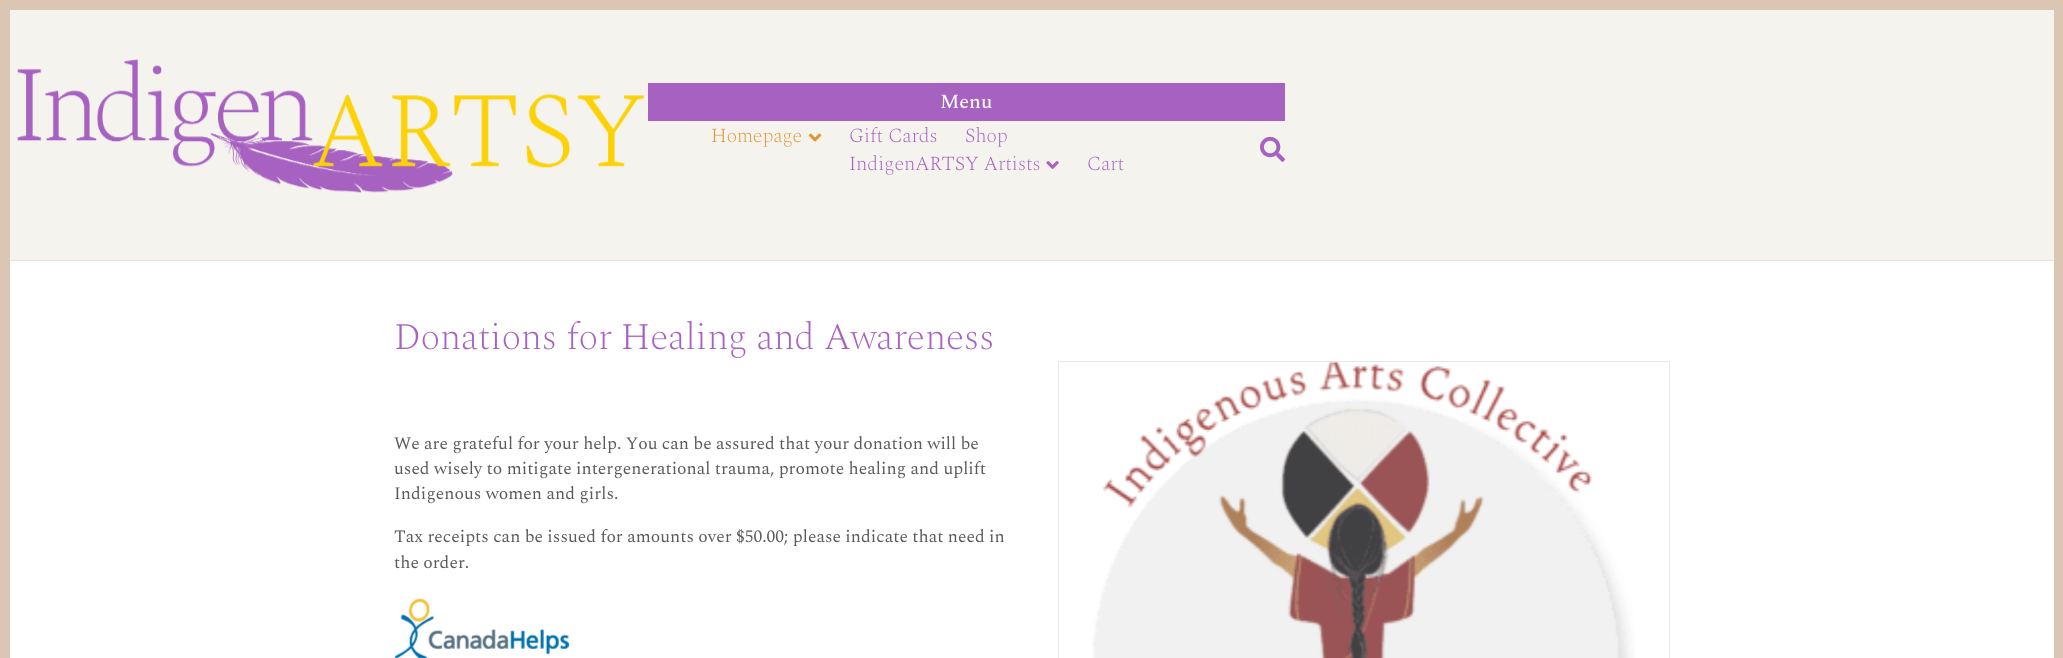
#include <cairo.h>
#include <math.h>
#include <stddef.h>


static void set_color(cairo_t *cr, unsigned color) {
    cairo_set_source_rgb(cr, (color >> 16) / 255.0, (color >> 8 & 255) / 255.0, (color & 255) / 255.0);
}

static void draw_text(cairo_t *cr, double x, double y, const char *s, const char *family, double size, int italic, int bold, unsigned color) {
    cairo_select_font_face(cr, family, italic ? CAIRO_FONT_SLANT_ITALIC : CAIRO_FONT_SLANT_NORMAL,
        bold ? CAIRO_FONT_WEIGHT_BOLD : CAIRO_FONT_WEIGHT_NORMAL);
    cairo_set_font_size(cr, size);
    set_color(cr, color);
    cairo_move_to(cr, x, y);
    cairo_show_text(cr, s);
}

static void fill_rect(cairo_t *cr, double x, double y, double w, double h, unsigned color) {
    set_color(cr, color);
    cairo_rectangle(cr, x, y, w, h);
    cairo_fill(cr);
}

static void draw_image(cairo_t *cr, const char *path, double x, double y, double w, double h) {
    cairo_surface_t *image = cairo_image_surface_create_from_png(path);
    cairo_save(cr);
    cairo_set_source_surface(cr, image, x, y);
    cairo_rectangle(cr, x, y, w, h);
    cairo_fill(cr);
    cairo_restore(cr);
    cairo_surface_destroy(image);
}

int main(void) {
    cairo_surface_t *surface = cairo_image_surface_create(CAIRO_FORMAT_RGB24, 2063, 658);
    cairo_t *cr = cairo_create(surface);
    cairo_font_options_t *options = cairo_font_options_create();
    cairo_font_options_set_hint_metrics(options, CAIRO_HINT_METRICS_OFF);
    cairo_font_options_set_hint_style(options, CAIRO_HINT_STYLE_NONE);
    cairo_set_font_options(cr, options);
    cairo_set_miter_limit(cr, 4);
    set_color(cr, 0xDAC6B3);
    cairo_paint(cr);
    fill_rect(cr, 10, 10, 2044, 250, 0xF5F3EE);
    fill_rect(cr, 10, 260, 2044, 1, 0xEBE0E8);
    draw_image(cr, "assets/img1.png", 17, 59, 627, 134);
    fill_rect(cr, 648, 83, 637, 38, 0xA761C0);
    draw_text(cr, 940, 108, "Menu", "Spectral Medium", 20, 0, 0, 0xFFFFFF);
    draw_text(cr, 711, 142, "Homepage", "Spectral ExtraLight", 20, 0, 0, 0xDD9933);
    draw_image(cr, "assets/img2.png", 808, 133, 14, 9);
    draw_text(cr, 849, 142, "Gift Cards", "Spectral ExtraLight", 20, 0, 0, 0xA761C0);
    draw_text(cr, 965, 142, "Shop", "Spectral ExtraLight", 20, 0, 0, 0xA761C0);
    draw_text(cr, 849, 170, "IndigenARTSY Artists", "Spectral ExtraLight", 20, 0, 0, 0xA761C0);
    draw_image(cr, "assets/img3.png", 1046, 161, 13, 8);
    draw_text(cr, 1087, 170, "Cart", "Spectral ExtraLight", 20, 0, 0, 0xA761C0);
    draw_image(cr, "assets/img4.png", 1260, 136, 25, 26);
    fill_rect(cr, 10, 261, 2044, 397, 0xFFFFFF);
    draw_text(cr, 394, 349, "Donations for Healing and Awareness", "Spectral ExtraLight", 37.5, 0, 0, 0xA761C0);
    draw_text(cr, 394, 449, "We are grateful for your help. You can be assured that your donation will be", "Spectral", 17.5, 0, 0, 0x5B5B5B);
    draw_text(cr, 394, 474, "used wisely to mitigate intergenerational trauma, promote healing and uplift", "Spectral", 17.5, 0, 0, 0x5B5B5B);
    draw_text(cr, 394, 499, "Indigenous women and girls.", "Spectral", 17.5, 0, 0, 0x5B5B5B);
    draw_text(cr, 394, 542, "Tax receipts can be issued for amounts over $50.00; please indicate that need in", "Spectral", 17.5, 0, 0, 0x5B5B5B);
    draw_text(cr, 394, 568, "the order.", "Spectral", 17.5, 0, 0, 0x5B5B5B);
    draw_image(cr, "assets/img5.png", 394, 599, 175, 59);
    cairo_rectangle(cr, 1058.5, 361.5, 611, 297);
    set_color(cr, 0xE6E6E6);
    cairo_set_line_width(cr, 1);
    cairo_stroke(cr);
    draw_image(cr, "assets/img6.png", 1092, 362, 543, 296);
    cairo_surface_write_to_png(surface, "output.png");
    cairo_font_options_destroy(options);
    cairo_destroy(cr);
    cairo_surface_destroy(surface);
    return 0;
}
